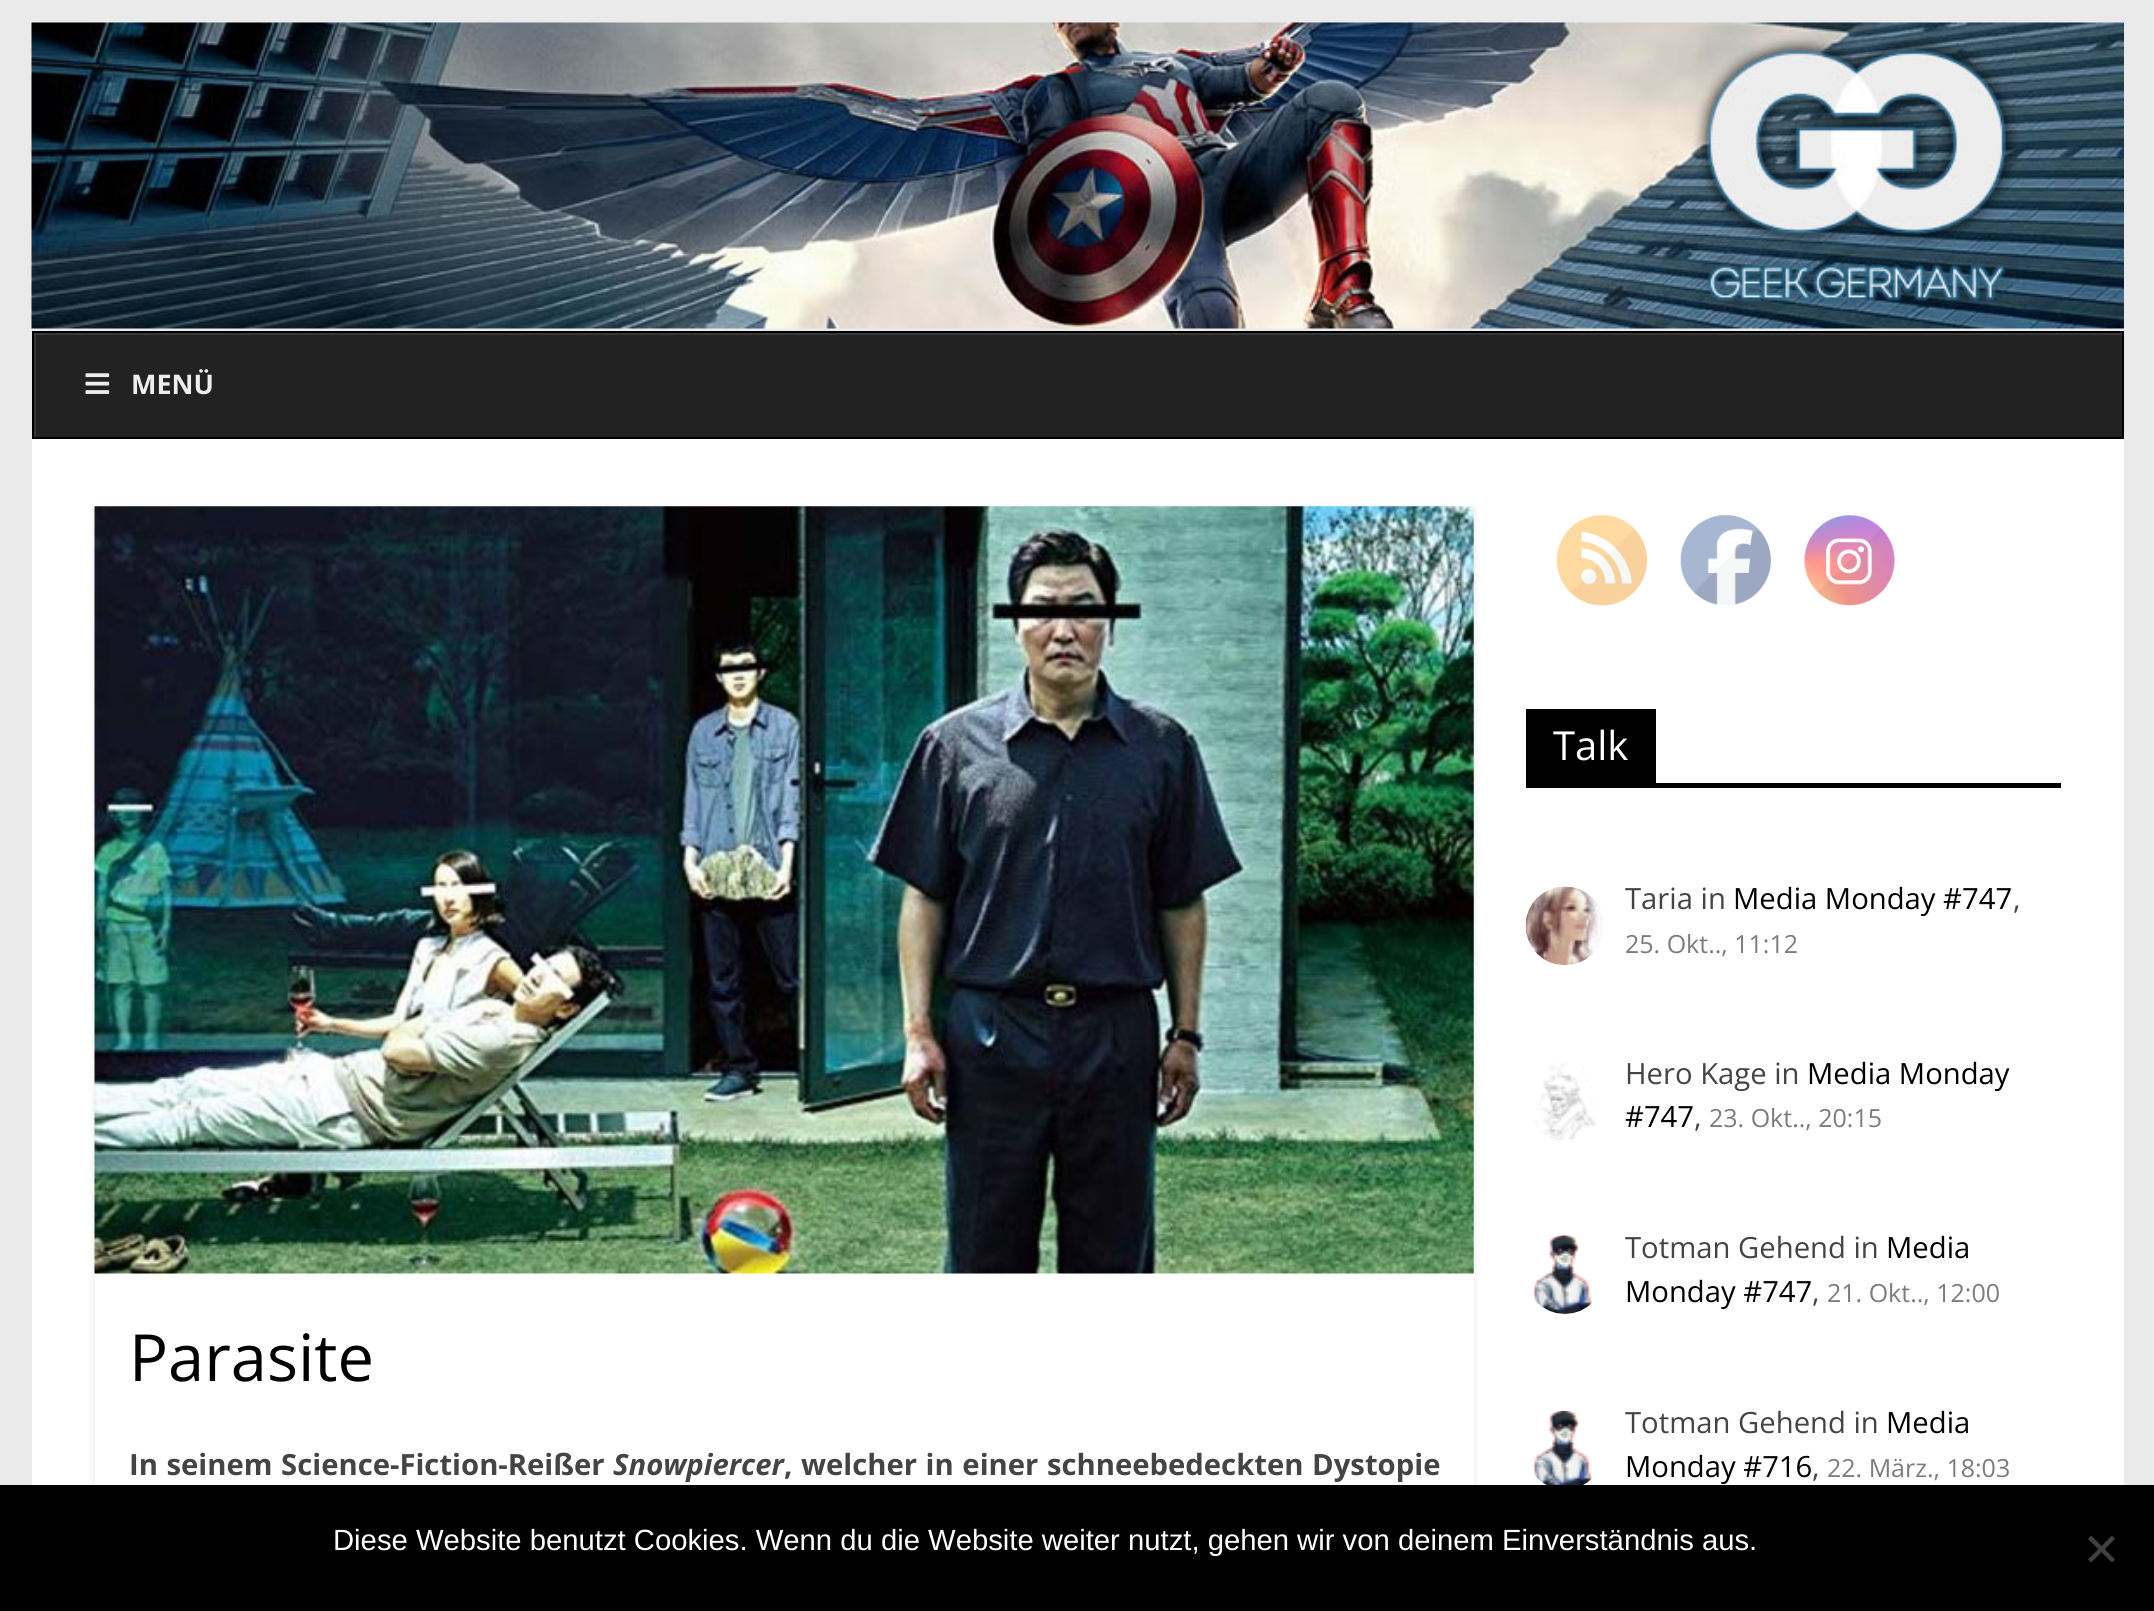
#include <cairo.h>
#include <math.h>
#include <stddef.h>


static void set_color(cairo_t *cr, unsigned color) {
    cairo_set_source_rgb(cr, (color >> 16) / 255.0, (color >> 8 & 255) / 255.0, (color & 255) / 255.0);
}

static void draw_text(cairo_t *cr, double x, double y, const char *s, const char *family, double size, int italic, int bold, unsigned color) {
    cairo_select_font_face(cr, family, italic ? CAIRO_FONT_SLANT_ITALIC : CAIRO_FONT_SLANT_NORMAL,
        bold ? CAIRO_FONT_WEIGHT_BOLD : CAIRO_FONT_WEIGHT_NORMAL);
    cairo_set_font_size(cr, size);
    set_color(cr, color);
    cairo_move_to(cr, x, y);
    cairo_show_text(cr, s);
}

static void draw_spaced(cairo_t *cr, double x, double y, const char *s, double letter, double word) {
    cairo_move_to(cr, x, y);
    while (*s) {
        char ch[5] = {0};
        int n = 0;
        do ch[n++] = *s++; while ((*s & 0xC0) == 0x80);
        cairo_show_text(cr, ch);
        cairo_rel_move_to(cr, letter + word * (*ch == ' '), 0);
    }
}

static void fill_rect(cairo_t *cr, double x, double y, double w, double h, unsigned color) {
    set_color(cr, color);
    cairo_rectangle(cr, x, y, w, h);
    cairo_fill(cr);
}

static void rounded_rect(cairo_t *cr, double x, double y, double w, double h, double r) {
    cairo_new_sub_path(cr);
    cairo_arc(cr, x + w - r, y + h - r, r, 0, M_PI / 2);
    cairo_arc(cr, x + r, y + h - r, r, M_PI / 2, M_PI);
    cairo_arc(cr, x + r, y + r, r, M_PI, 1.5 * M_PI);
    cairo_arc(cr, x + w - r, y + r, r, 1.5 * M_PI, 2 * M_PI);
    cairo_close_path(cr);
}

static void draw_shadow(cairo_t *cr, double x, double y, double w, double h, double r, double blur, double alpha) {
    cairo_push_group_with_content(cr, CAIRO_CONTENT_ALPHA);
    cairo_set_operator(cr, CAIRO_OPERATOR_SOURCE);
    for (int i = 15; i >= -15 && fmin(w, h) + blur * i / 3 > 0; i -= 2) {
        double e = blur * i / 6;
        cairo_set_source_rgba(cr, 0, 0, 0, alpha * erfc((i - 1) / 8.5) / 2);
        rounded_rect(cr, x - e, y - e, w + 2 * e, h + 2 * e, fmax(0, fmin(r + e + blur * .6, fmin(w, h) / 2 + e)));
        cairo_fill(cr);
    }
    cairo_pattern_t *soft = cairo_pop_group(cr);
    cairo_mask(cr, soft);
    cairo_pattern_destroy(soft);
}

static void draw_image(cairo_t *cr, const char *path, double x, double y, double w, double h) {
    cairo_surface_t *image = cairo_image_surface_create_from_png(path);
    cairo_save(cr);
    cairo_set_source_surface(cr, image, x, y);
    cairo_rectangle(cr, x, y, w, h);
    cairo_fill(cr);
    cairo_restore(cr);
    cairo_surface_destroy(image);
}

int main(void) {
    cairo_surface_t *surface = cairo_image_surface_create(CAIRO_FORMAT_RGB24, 2154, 1611);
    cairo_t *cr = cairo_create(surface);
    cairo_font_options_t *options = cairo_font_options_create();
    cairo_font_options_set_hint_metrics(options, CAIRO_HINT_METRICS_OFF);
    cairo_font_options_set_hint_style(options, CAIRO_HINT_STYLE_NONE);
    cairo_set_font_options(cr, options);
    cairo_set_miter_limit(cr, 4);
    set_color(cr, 0xEAEAEA);
    cairo_paint(cr);
    draw_image(cr, "assets/img1.png", 31, 22, 2093, 307);
    fill_rect(cr, 36, 335, 2086, 102, 0x222222);
    cairo_save(cr);
    cairo_rectangle(cr, 34, 333, 2088, 104);
    cairo_clip(cr);
    set_color(cr, 0x383838);
    cairo_set_fill_rule(cr, CAIRO_FILL_RULE_EVEN_ODD);
    cairo_new_path(cr);
    cairo_move_to(cr, -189, 110);
    cairo_line_to(cr, 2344, 110);
    cairo_line_to(cr, 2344, 659);
    cairo_line_to(cr, -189, 659);
    cairo_close_path(cr);
    cairo_move_to(cr, 36, 335);
    cairo_line_to(cr, 2124, 335);
    cairo_line_to(cr, 2124, 439);
    cairo_line_to(cr, 36, 439);
    cairo_close_path(cr);
    cairo_fill(cr);
    cairo_restore(cr);
    cairo_rectangle(cr, 33, 332, 2090, 106);
    set_color(cr, 0x000000);
    cairo_stroke(cr);
    draw_image(cr, "assets/img2.png", 85, 373, 25, 21);
    draw_text(cr, 131, 394, "MENÜ", "Open Sans", 27, 0, 1, 0xEEEEEE);
    fill_rect(cr, 32, 439, 2092, 1046, 0xFFFFFF);
    cairo_save(cr);
    cairo_set_fill_rule(cr, CAIRO_FILL_RULE_EVEN_ODD);
    cairo_new_path(cr);
    cairo_move_to(cr, 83, 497);
    cairo_line_to(cr, 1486, 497);
    cairo_line_to(cr, 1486, 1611);
    cairo_line_to(cr, 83, 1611);
    cairo_close_path(cr);
    cairo_move_to(cr, 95, 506);
    cairo_line_to(cr, 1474, 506);
    cairo_line_to(cr, 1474, 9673);
    cairo_line_to(cr, 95, 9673);
    cairo_close_path(cr);
    cairo_clip(cr);
    set_color(cr, 0x000000);
    draw_shadow(cr, 95, 509, 1379, 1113, 0, 3.5, 0.1);
    cairo_restore(cr);
    draw_image(cr, "assets/img3.png", 94, 506, 1380, 768);
    draw_text(cr, 129, 1381, "Parasite", "Open Sans", 65, 0, 0, 0x000000);
    cairo_select_font_face(cr, "Open Sans", CAIRO_FONT_SLANT_NORMAL, CAIRO_FONT_WEIGHT_BOLD);
    cairo_set_font_size(cr, 29.25);
    set_color(cr, 0x444444);
    draw_spaced(cr, 129, 1475, "In seinem Science-Fiction-Reißer", 0, 1);
    draw_text(cr, 613, 1475, "Snowpiercer", "Open Sans", 29.25, 1, 1, 0x444444);
    cairo_select_font_face(cr, "Open Sans", CAIRO_FONT_SLANT_NORMAL, CAIRO_FONT_WEIGHT_BOLD);
    draw_spaced(cr, 784, 1475, ", welcher in einer schneebedeckten Dystopie", 0, 1);
    draw_image(cr, "assets/img4.png", 1557, 515, 90, 91);
    draw_image(cr, "assets/img5.png", 1680, 515, 91, 90);
    draw_image(cr, "assets/img6.png", 1804, 515, 91, 91);
    fill_rect(cr, 1526, 783, 535, 5, 0x000000);
    fill_rect(cr, 1526, 709, 130, 74, 0x000000);
    draw_text(cr, 1553, 760, "Talk", "Open Sans", 40, 0, 0, 0xFFFFFF);
    draw_image(cr, "assets/img7.png", 1525, 886, 78, 80);
    draw_text(cr, 1625, 909, "Taria in", "Open Sans", 29.25, 0, 0, 0x444444);
    draw_text(cr, 1733, 909, "Media Monday #747", "Open Sans", 29.25, 0, 0, 0x000000);
    draw_text(cr, 2013, 909, ",", "Open Sans", 29.25, 0, 0, 0x444444);
    draw_text(cr, 1625, 953, "25. Okt.., 11:12", "Open Sans", 25, 0, 0, 0x7C7C7C);
    draw_image(cr, "assets/img8.png", 1534, 1062, 62, 79);
    draw_text(cr, 1625, 1084, "Hero Kage in", "Open Sans", 29.25, 0, 0, 0x444444);
    draw_text(cr, 1807, 1084, "Media Monday", "Open Sans", 29.25, 0, 0, 0x000000);
    draw_text(cr, 1625, 1127, "#747", "Open Sans", 29.25, 0, 0, 0x000000);
    draw_text(cr, 1694, 1127, ",", "Open Sans", 29.25, 0, 0, 0x444444);
    draw_text(cr, 1709, 1127, "23. Okt.., 20:15", "Open Sans", 25, 0, 0, 0x7C7C7C);
    draw_image(cr, "assets/img9.png", 1532, 1235, 61, 79);
    draw_text(cr, 1625, 1258, "Totman Gehend in", "Open Sans", 29.25, 0, 0, 0x444444);
    draw_text(cr, 1886, 1258, "Media", "Open Sans", 29.25, 0, 0, 0x000000);
    draw_text(cr, 1625, 1302, "Monday #747", "Open Sans", 29.25, 0, 0, 0x000000);
    draw_text(cr, 1812, 1302, ",", "Open Sans", 29.25, 0, 0, 0x444444);
    draw_text(cr, 1827, 1302, "21. Okt.., 12:00", "Open Sans", 25, 0, 0, 0x7C7C7C);
    draw_image(cr, "assets/img10.png", 1532, 1410, 61, 75);
    draw_text(cr, 1625, 1433, "Totman Gehend in", "Open Sans", 29.25, 0, 0, 0x444444);
    draw_text(cr, 1886, 1433, "Media", "Open Sans", 29.25, 0, 0, 0x000000);
    draw_text(cr, 1625, 1477, "Monday #716", "Open Sans", 29.25, 0, 0, 0x000000);
    draw_text(cr, 1812, 1477, ",", "Open Sans", 29.25, 0, 0, 0x444444);
    draw_text(cr, 1827, 1477, "22. M", "Open Sans", 25, 0, 0, 0x7C7C7C);
    draw_text(cr, 1891, 1477, "ä", "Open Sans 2", 25, 0, 0, 0x7C7C7C);
    draw_text(cr, 1905, 1477, "rz., 18:03", "Open Sans", 25, 0, 0, 0x7C7C7C);
    fill_rect(cr, 0, 1485, 2154, 126, 0x000000);
    draw_text(cr, 333, 1550, "Diese Website benutzt Cookies. Wenn du die Website weiter nutzt, gehen wir von deinem Einverständnis aus.", "Liberation Sans", 29.25, 0, 0, 0xFFFFFF);
    set_color(cr, 0x404040);
    cairo_new_path(cr);
    cairo_move_to(cr, 2112, 1535.5);
    cairo_line_to(cr, 2115, 1539);
    cairo_line_to(cr, 2091, 1562.5);
    cairo_line_to(cr, 2088, 1559.5);
    cairo_close_path(cr);
    cairo_fill(cr);
    cairo_new_path(cr);
    cairo_move_to(cr, 2088, 1539);
    cairo_line_to(cr, 2091, 1535.5);
    cairo_line_to(cr, 2115, 1559.5);
    cairo_line_to(cr, 2112, 1562.5);
    cairo_close_path(cr);
    cairo_fill(cr);
    cairo_surface_write_to_png(surface, "output.png");
    cairo_font_options_destroy(options);
    cairo_destroy(cr);
    cairo_surface_destroy(surface);
    return 0;
}
